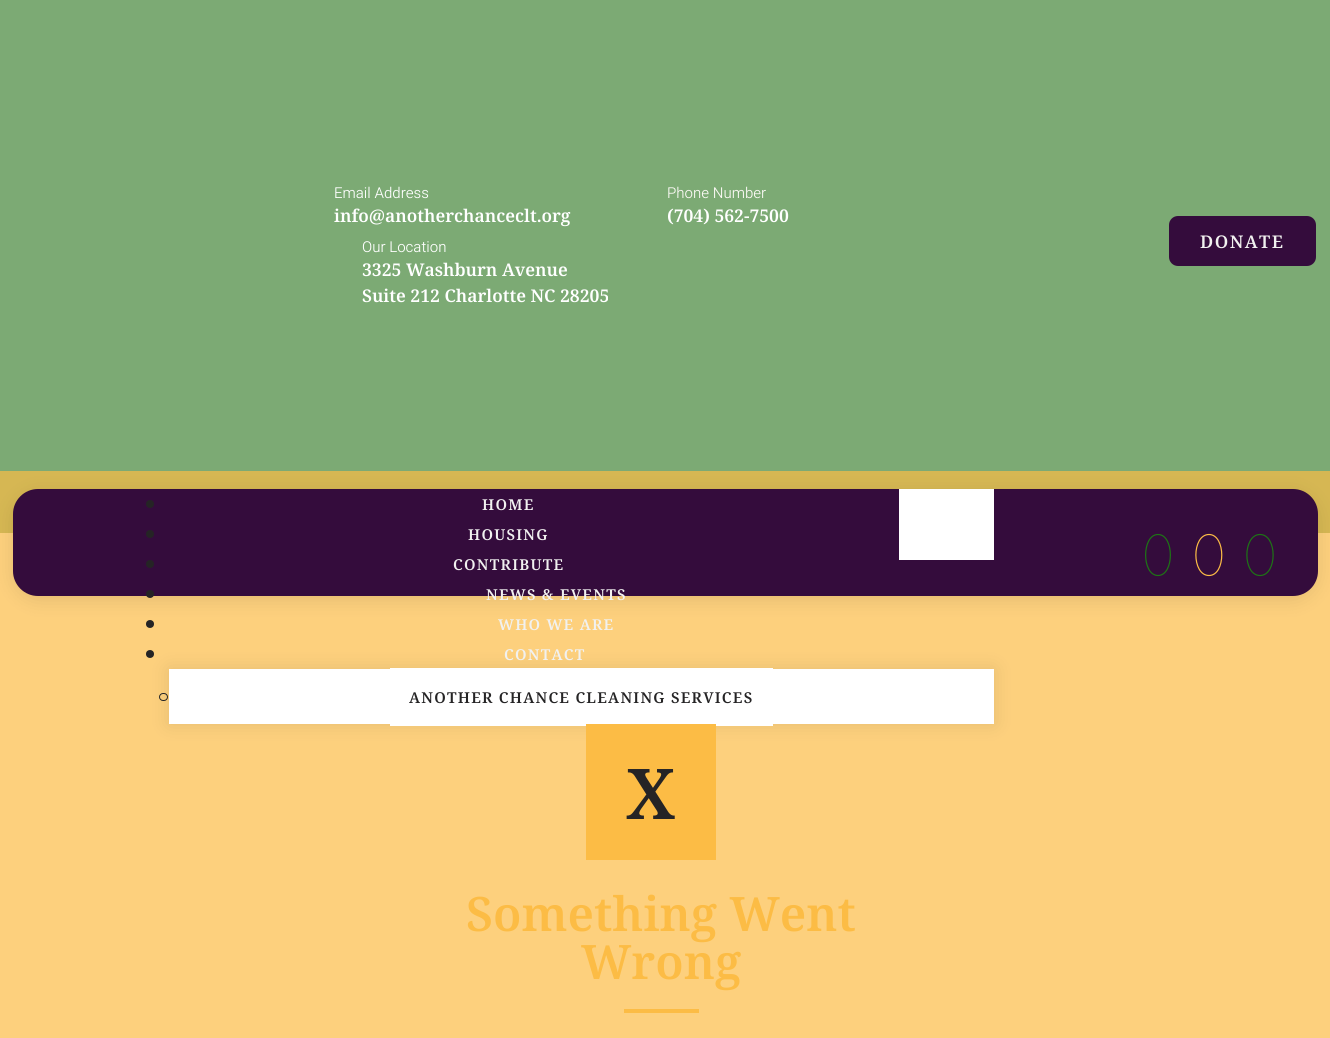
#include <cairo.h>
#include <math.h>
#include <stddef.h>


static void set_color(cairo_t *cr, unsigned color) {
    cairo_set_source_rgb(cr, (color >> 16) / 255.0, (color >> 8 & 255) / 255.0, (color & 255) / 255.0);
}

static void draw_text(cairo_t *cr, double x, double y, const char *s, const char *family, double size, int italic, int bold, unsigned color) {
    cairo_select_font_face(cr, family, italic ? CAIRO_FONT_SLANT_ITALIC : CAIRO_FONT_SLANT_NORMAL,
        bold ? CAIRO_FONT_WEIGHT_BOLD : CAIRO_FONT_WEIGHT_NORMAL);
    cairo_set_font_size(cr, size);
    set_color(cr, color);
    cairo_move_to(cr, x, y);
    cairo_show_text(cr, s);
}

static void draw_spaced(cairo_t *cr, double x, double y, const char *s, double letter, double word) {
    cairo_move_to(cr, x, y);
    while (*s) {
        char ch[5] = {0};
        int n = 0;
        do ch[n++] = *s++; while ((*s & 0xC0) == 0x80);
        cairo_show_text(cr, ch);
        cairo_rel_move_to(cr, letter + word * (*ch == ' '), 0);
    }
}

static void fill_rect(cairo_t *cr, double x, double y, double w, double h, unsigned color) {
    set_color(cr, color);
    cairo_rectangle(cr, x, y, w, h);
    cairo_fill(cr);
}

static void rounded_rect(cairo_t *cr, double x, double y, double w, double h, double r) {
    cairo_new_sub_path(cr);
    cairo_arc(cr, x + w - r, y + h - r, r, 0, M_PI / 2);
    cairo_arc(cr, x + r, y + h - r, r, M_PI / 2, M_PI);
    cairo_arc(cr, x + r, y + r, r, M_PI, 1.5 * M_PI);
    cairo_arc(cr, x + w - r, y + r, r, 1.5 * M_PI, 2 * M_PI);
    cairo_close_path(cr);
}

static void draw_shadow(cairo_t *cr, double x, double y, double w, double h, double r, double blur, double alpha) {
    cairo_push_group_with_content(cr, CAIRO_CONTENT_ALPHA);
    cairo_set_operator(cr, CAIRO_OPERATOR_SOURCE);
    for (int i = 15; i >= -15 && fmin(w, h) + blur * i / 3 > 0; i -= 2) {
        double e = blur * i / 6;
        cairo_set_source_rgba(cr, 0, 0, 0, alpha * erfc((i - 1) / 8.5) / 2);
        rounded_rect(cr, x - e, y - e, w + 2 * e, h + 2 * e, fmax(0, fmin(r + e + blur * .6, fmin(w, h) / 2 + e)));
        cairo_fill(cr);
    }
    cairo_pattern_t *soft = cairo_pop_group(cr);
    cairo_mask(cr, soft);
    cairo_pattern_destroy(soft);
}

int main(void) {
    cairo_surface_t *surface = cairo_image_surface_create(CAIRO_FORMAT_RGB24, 1330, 1038);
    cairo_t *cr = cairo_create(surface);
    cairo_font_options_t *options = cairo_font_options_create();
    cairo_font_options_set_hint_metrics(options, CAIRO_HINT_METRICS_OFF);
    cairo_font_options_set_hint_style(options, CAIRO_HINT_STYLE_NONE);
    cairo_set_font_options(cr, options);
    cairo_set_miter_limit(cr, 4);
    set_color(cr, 0xFDD07D);
    cairo_paint(cr);
    fill_rect(cr, 0, 0, 1330, 471, 0x7CAA74);
    fill_rect(cr, 0, 471, 1330, 62, 0xD6B753);
    draw_text(cr, 334, 198, "Email Address", "Heebo Light", 15, 0, 0, 0xFFFFFF);
    draw_text(cr, 334, 222, "info@anotherchanceclt.org", "Noto Serif SemiBold", 17.5, 0, 0, 0xFFFFFF);
    draw_text(cr, 667, 198, "Phone Number", "Heebo Light", 15, 0, 0, 0xFBF9F5);
    draw_text(cr, 667, 222, "(704) 562-7500", "Noto Serif SemiBold", 17.5, 0, 0, 0xFFFFFF);
    draw_text(cr, 362, 252, "Our Location", "Heebo Light", 15, 0, 0, 0xFFFFFF);
    draw_text(cr, 362, 276, "3325 Washburn Avenue", "Noto Serif SemiBold", 17.5, 0, 0, 0xFFFFFF);
    draw_text(cr, 362, 302, "Suite 212 Charlotte NC 28205", "Noto Serif SemiBold", 17.5, 0, 0, 0xFFFFFF);
    set_color(cr, 0x340C3C);
    rounded_rect(cr, 1169, 216, 147, 50, 9);
    cairo_fill(cr);
    set_color(cr, 0xF1F1F0);
    draw_spaced(cr, 1200, 248, "DONATE", 1.5, 0);
    set_color(cr, 0x000000);
    draw_shadow(cr, 13, 493, 1305, 107, 25, 9.5, 0.1);
    set_color(cr, 0x340C3C);
    rounded_rect(cr, 13, 489, 1305, 107, 25);
    cairo_fill(cr);
    set_color(cr, 0x252425);
    cairo_arc(cr, 150, 504, 4, 0, 2 * M_PI);
    cairo_fill(cr);
    cairo_set_font_size(cr, 15);
    set_color(cr, 0xF1F1F0);
    draw_spaced(cr, 482, 510, "HOME", 1.25, 0);
    set_color(cr, 0x252425);
    cairo_new_path(cr);
    cairo_arc(cr, 150, 534, 4, 0, 2 * M_PI);
    cairo_fill(cr);
    set_color(cr, 0xF1F1F0);
    draw_spaced(cr, 468, 540, "HOUSING", 1.25, 0);
    set_color(cr, 0x252425);
    cairo_new_path(cr);
    cairo_arc(cr, 150, 564, 4, 0, 2 * M_PI);
    cairo_fill(cr);
    set_color(cr, 0xF1F1F0);
    draw_spaced(cr, 453, 570, "CONTRIBUTE", 1.25, 0);
    set_color(cr, 0x252425);
    cairo_new_path(cr);
    cairo_arc(cr, 150, 594, 4, 0, 2 * M_PI);
    cairo_fill(cr);
    set_color(cr, 0xF1F1F0);
    draw_spaced(cr, 486, 600, "NEWS & EVENTS", 1.25, 0);
    set_color(cr, 0x252425);
    cairo_new_path(cr);
    cairo_arc(cr, 150, 624, 4, 0, 2 * M_PI);
    cairo_fill(cr);
    set_color(cr, 0xF1F1F0);
    draw_spaced(cr, 498, 630, "WHO WE ARE", 1.25, 0);
    set_color(cr, 0x000000);
    draw_shadow(cr, 169, 669, 825, 55, 0, 9.5, 0.1);
    set_color(cr, 0x252425);
    cairo_arc(cr, 150, 654, 4, 0, 2 * M_PI);
    cairo_fill(cr);
    set_color(cr, 0xF1F1F0);
    draw_spaced(cr, 504, 660, "CONTACT", 1.25, 0);
    fill_rect(cr, 169, 669, 825, 55, 0xFFFFFF);
    rounded_rect(cr, 159.5, 693.5, 8, 7, 3.5);
    set_color(cr, 0x252425);
    cairo_set_line_width(cr, 1);
    cairo_stroke(cr);
    fill_rect(cr, 390, 668, 383, 58, 0xFFFFFF);
    set_color(cr, 0x252425);
    draw_spaced(cr, 409, 703, "ANOTHER CHANCE CLEANING SERVICES", 1.25, 0);
    fill_rect(cr, 586, 724, 130, 136, 0xFCBC45);
    cairo_set_font_size(cr, 70);
    set_color(cr, 0x252425);
    draw_spaced(cr, 626, 819, "X", 1.5, 0);
    fill_rect(cr, 899, 489, 95, 71, 0xFFFFFF);
    cairo_new_path(cr);
    cairo_move_to(cr, 1158, 534.5);
    cairo_curve_to(cr, 1174.5, 534.5, 1174.5, 575.5, 1158, 575.5);
    cairo_curve_to(cr, 1141.5, 575.5, 1141.5, 534.5, 1158, 534.5);
    cairo_close_path(cr);
    set_color(cr, 0x1D7415);
    cairo_set_line_width(cr, 1.2);
    cairo_stroke(cr);
    cairo_new_path(cr);
    cairo_move_to(cr, 1209, 534.5);
    cairo_curve_to(cr, 1226, 534.5, 1226, 575.5, 1209, 575.5);
    cairo_curve_to(cr, 1191.5, 575.5, 1191.5, 534.5, 1209, 534.5);
    cairo_close_path(cr);
    set_color(cr, 0xFCBC45);
    cairo_stroke(cr);
    cairo_new_path(cr);
    cairo_move_to(cr, 1260, 534.5);
    cairo_curve_to(cr, 1277.5, 534.5, 1277.5, 575.5, 1260, 575.5);
    cairo_curve_to(cr, 1242.5, 575.5, 1242.5, 534.5, 1260, 534.5);
    cairo_close_path(cr);
    set_color(cr, 0x1D7415);
    cairo_stroke(cr);
    draw_text(cr, 466, 931, "Something Went", "Noto Serif SemiBold", 47.5, 0, 0, 0xFCBC45);
    draw_text(cr, 581, 979, "Wrong", "Noto Serif SemiBold", 47.5, 0, 0, 0xFCBC45);
    fill_rect(cr, 624, 1009, 75, 4, 0xFCBC45);
    cairo_surface_write_to_png(surface, "output.png");
    cairo_font_options_destroy(options);
    cairo_destroy(cr);
    cairo_surface_destroy(surface);
    return 0;
}
